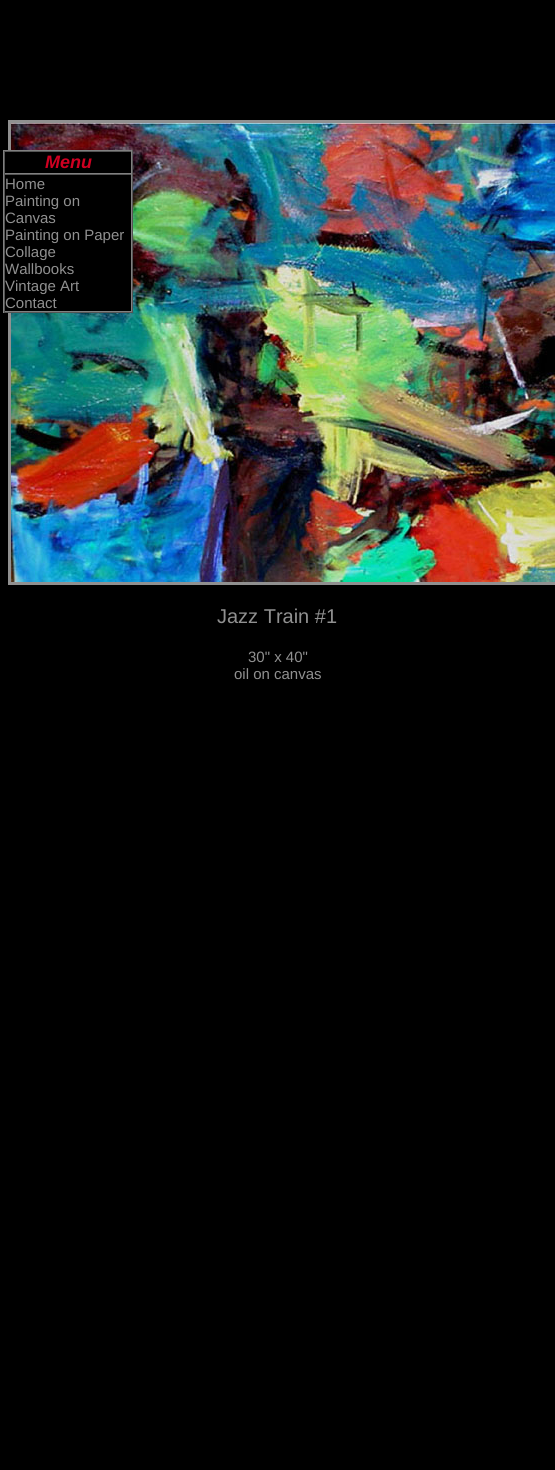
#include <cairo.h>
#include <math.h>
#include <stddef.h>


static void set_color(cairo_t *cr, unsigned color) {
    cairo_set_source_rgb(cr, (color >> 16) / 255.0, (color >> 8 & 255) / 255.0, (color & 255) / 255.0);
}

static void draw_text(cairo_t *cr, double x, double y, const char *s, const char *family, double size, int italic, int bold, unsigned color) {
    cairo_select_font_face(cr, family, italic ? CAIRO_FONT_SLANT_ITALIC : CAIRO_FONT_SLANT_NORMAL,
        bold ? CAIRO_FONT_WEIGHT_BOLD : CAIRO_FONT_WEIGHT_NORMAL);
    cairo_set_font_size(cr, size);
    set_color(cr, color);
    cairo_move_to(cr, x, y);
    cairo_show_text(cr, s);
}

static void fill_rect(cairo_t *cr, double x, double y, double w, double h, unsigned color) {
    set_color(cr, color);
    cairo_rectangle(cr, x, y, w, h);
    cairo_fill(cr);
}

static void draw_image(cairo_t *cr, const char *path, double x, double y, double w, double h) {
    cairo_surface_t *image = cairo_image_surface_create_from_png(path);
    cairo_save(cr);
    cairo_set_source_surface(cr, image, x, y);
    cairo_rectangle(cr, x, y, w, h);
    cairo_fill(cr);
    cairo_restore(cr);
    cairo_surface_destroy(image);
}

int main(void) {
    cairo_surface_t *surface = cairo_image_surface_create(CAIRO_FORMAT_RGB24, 555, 1470);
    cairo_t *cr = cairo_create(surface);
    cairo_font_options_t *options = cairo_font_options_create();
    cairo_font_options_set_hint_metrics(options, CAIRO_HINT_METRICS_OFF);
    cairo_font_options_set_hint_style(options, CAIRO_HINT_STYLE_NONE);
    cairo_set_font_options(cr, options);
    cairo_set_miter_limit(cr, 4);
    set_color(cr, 0x000000);
    cairo_paint(cr);
    cairo_rectangle(cr, 9.5, 121.5, 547, 462);
    set_color(cr, 0x909090);
    cairo_set_line_width(cr, 3);
    cairo_stroke(cr);
    draw_image(cr, "assets/img1.png", 11, 123, 544, 459);
    fill_rect(cr, 3, 150, 130, 1, 0x808080);
    fill_rect(cr, 132, 150, 1, 163, 0x555555);
    fill_rect(cr, 3, 312, 130, 1, 0x555555);
    fill_rect(cr, 3, 150, 1, 163, 0x808080);
    fill_rect(cr, 8, 152, 123, 21, 0x000000);
    fill_rect(cr, 4, 151, 128, 1, 0x555555);
    fill_rect(cr, 131, 151, 1, 23, 0x808080);
    fill_rect(cr, 4, 173, 128, 1, 0x808080);
    fill_rect(cr, 4, 151, 1, 23, 0x555555);
    draw_text(cr, 45, 168, "Menu", "Liberation Sans", 18, 1, 1, 0xCF0021);
    fill_rect(cr, 8, 175, 123, 136, 0x000000);
    fill_rect(cr, 4, 174, 128, 1, 0x555555);
    fill_rect(cr, 131, 174, 1, 138, 0x808080);
    fill_rect(cr, 4, 311, 128, 1, 0x808080);
    fill_rect(cr, 4, 174, 1, 138, 0x555555);
    draw_text(cr, 5, 189, "Home", "Liberation Sans", 15, 0, 0, 0x909090);
    draw_text(cr, 5, 206, "Painting on", "Liberation Sans", 15, 0, 0, 0x909090);
    draw_text(cr, 5, 223, "Canvas", "Liberation Sans", 15, 0, 0, 0x909090);
    draw_text(cr, 5, 240, "Painting on Paper", "Liberation Sans", 15, 0, 0, 0x909090);
    draw_text(cr, 5, 257, "Collage", "Liberation Sans", 15, 0, 0, 0x909090);
    draw_text(cr, 5, 274, "Wallbooks", "Liberation Sans", 15, 0, 0, 0x909090);
    draw_text(cr, 5, 291, "Vintage Art", "Liberation Sans", 15, 0, 0, 0x909090);
    draw_text(cr, 5, 308, "Contact", "Liberation Sans", 15, 0, 0, 0x909090);
    draw_text(cr, 217, 623, "Jazz Train #1", "Liberation Sans", 20, 0, 0, 0x909090);
    draw_text(cr, 248, 662, "30\" x 40\"", "Liberation Sans", 15, 0, 0, 0x909090);
    draw_text(cr, 234, 679, "oil on canvas", "Liberation Sans", 15, 0, 0, 0x909090);
    cairo_surface_write_to_png(surface, "output.png");
    cairo_font_options_destroy(options);
    cairo_destroy(cr);
    cairo_surface_destroy(surface);
    return 0;
}
